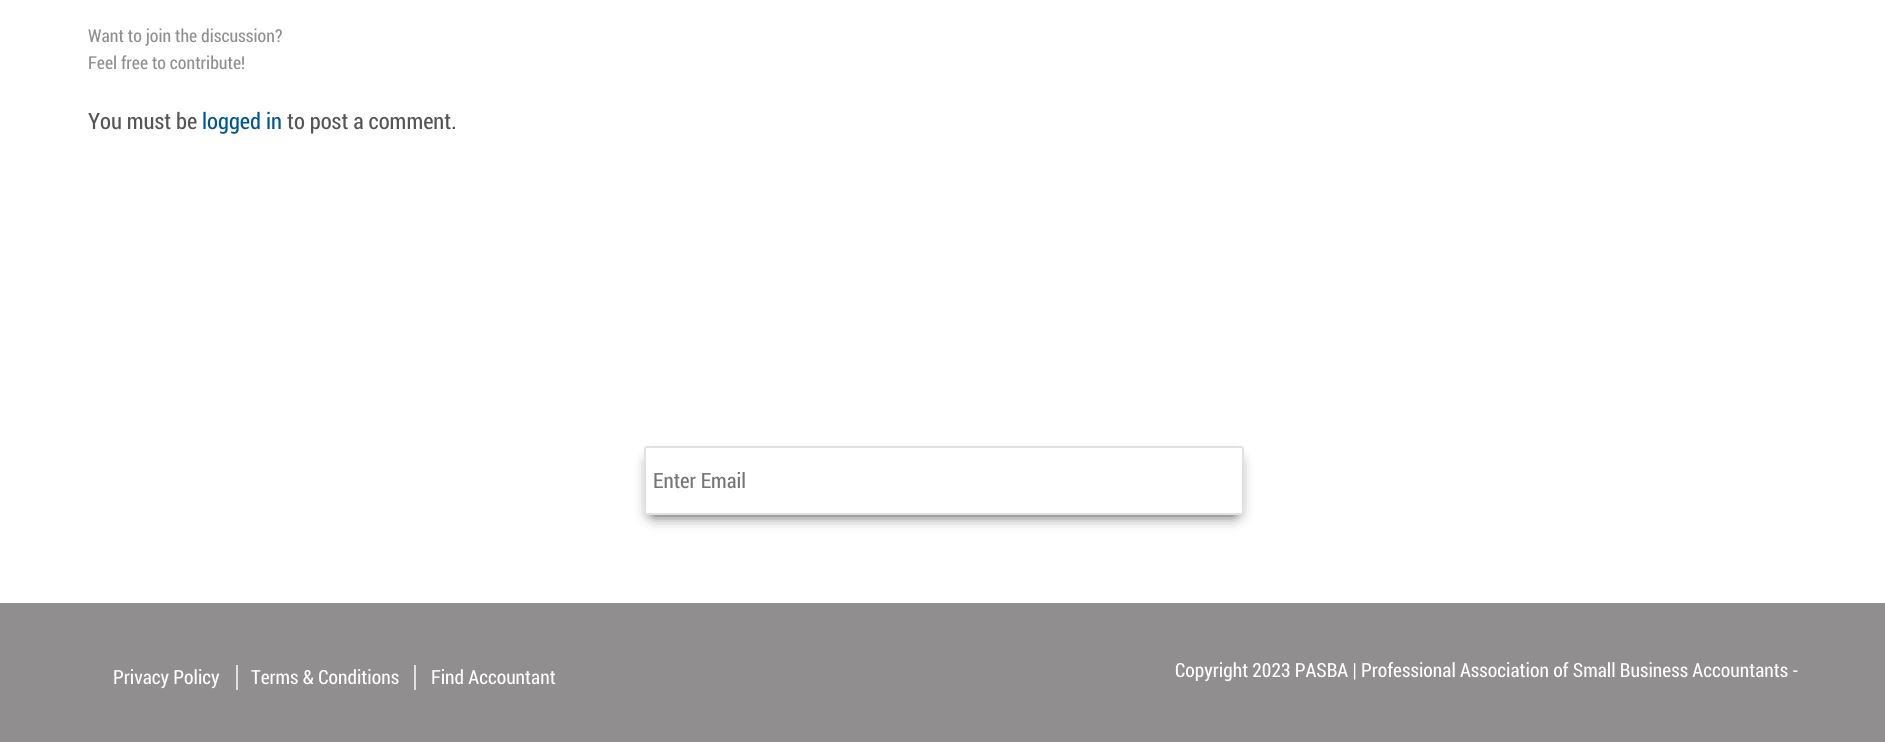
#include <cairo.h>
#include <math.h>
#include <stddef.h>


static void set_color(cairo_t *cr, unsigned color) {
    cairo_set_source_rgb(cr, (color >> 16) / 255.0, (color >> 8 & 255) / 255.0, (color & 255) / 255.0);
}

static void draw_text(cairo_t *cr, double x, double y, const char *s, const char *family, double size, int italic, int bold, unsigned color) {
    cairo_select_font_face(cr, family, italic ? CAIRO_FONT_SLANT_ITALIC : CAIRO_FONT_SLANT_NORMAL,
        bold ? CAIRO_FONT_WEIGHT_BOLD : CAIRO_FONT_WEIGHT_NORMAL);
    cairo_set_font_size(cr, size);
    set_color(cr, color);
    cairo_move_to(cr, x, y);
    cairo_show_text(cr, s);
}

static void fill_rect(cairo_t *cr, double x, double y, double w, double h, unsigned color) {
    set_color(cr, color);
    cairo_rectangle(cr, x, y, w, h);
    cairo_fill(cr);
}

static void rounded_rect(cairo_t *cr, double x, double y, double w, double h, double r) {
    cairo_new_sub_path(cr);
    cairo_arc(cr, x + w - r, y + h - r, r, 0, M_PI / 2);
    cairo_arc(cr, x + r, y + h - r, r, M_PI / 2, M_PI);
    cairo_arc(cr, x + r, y + r, r, M_PI, 1.5 * M_PI);
    cairo_arc(cr, x + w - r, y + r, r, 1.5 * M_PI, 2 * M_PI);
    cairo_close_path(cr);
}

static void draw_shadow(cairo_t *cr, double x, double y, double w, double h, double r, double blur, double alpha) {
    cairo_push_group_with_content(cr, CAIRO_CONTENT_ALPHA);
    cairo_set_operator(cr, CAIRO_OPERATOR_SOURCE);
    for (int i = 15; i >= -15 && fmin(w, h) + blur * i / 3 > 0; i -= 2) {
        double e = blur * i / 6;
        cairo_set_source_rgba(cr, 0, 0, 0, alpha * erfc((i - 1) / 8.5) / 2);
        rounded_rect(cr, x - e, y - e, w + 2 * e, h + 2 * e, fmax(0, fmin(r + e + blur * .6, fmin(w, h) / 2 + e)));
        cairo_fill(cr);
    }
    cairo_pattern_t *soft = cairo_pop_group(cr);
    cairo_mask(cr, soft);
    cairo_pattern_destroy(soft);
}

int main(void) {
    cairo_surface_t *surface = cairo_image_surface_create(CAIRO_FORMAT_RGB24, 1885, 742);
    cairo_t *cr = cairo_create(surface);
    cairo_font_options_t *options = cairo_font_options_create();
    cairo_font_options_set_hint_metrics(options, CAIRO_HINT_METRICS_OFF);
    cairo_font_options_set_hint_style(options, CAIRO_HINT_STYLE_NONE);
    cairo_set_font_options(cr, options);
    cairo_set_miter_limit(cr, 4);
    set_color(cr, 0xFFFFFF);
    cairo_paint(cr);
    draw_text(cr, 88, 42, "Want to join the discussion?", "Roboto Condensed", 17.8, 0, 0, 0x908E8F);
    draw_text(cr, 88, 69, "Feel free to contribute!", "Roboto Condensed", 17.8, 0, 0, 0x908E8F);
    draw_text(cr, 88, 129, "You must be", "Roboto Condensed", 22.5, 0, 0, 0x555555);
    draw_text(cr, 202, 129, "logged in", "Roboto Condensed", 22.5, 0, 0, 0x015791);
    draw_text(cr, 287, 129, "to post a comment.", "Roboto Condensed", 22.5, 0, 0, 0x555555);
    set_color(cr, 0x000000);
    draw_shadow(cr, 653, 462, 582, 51, 0, 8, 1);
    set_color(cr, 0xFFFFFF);
    rounded_rect(cr, 645, 447, 598, 67, 2);
    cairo_fill_preserve(cr);
    set_color(cr, 0xE1E1E1);
    cairo_stroke(cr);
    draw_text(cr, 653, 488, "Enter Email", "Roboto Condensed", 21, 0, 0, 0x757575);
    fill_rect(cr, 0, 603, 1885, 139, 0x908E8F);
    draw_text(cr, 113, 684, "Privacy Policy", "Roboto Condensed", 19.5, 0, 0, 0xFFFFFF);
    fill_rect(cr, 236, 665, 2, 25, 0xE1E1E1);
    draw_text(cr, 251, 684, "Terms & Conditions", "Roboto Condensed", 19.5, 0, 0, 0xFFFFFF);
    fill_rect(cr, 414, 665, 2, 25, 0xE1E1E1);
    draw_text(cr, 431, 684, "Find Accountant", "Roboto Condensed", 19.5, 0, 0, 0xFFFFFF);
    draw_text(cr, 1175, 677, "Copyright 2023 PASBA | Professional Association of Small Business Accountants -", "Roboto Condensed", 19.5, 0, 0, 0xFFFFFF);
    cairo_surface_write_to_png(surface, "output.png");
    cairo_font_options_destroy(options);
    cairo_destroy(cr);
    cairo_surface_destroy(surface);
    return 0;
}
